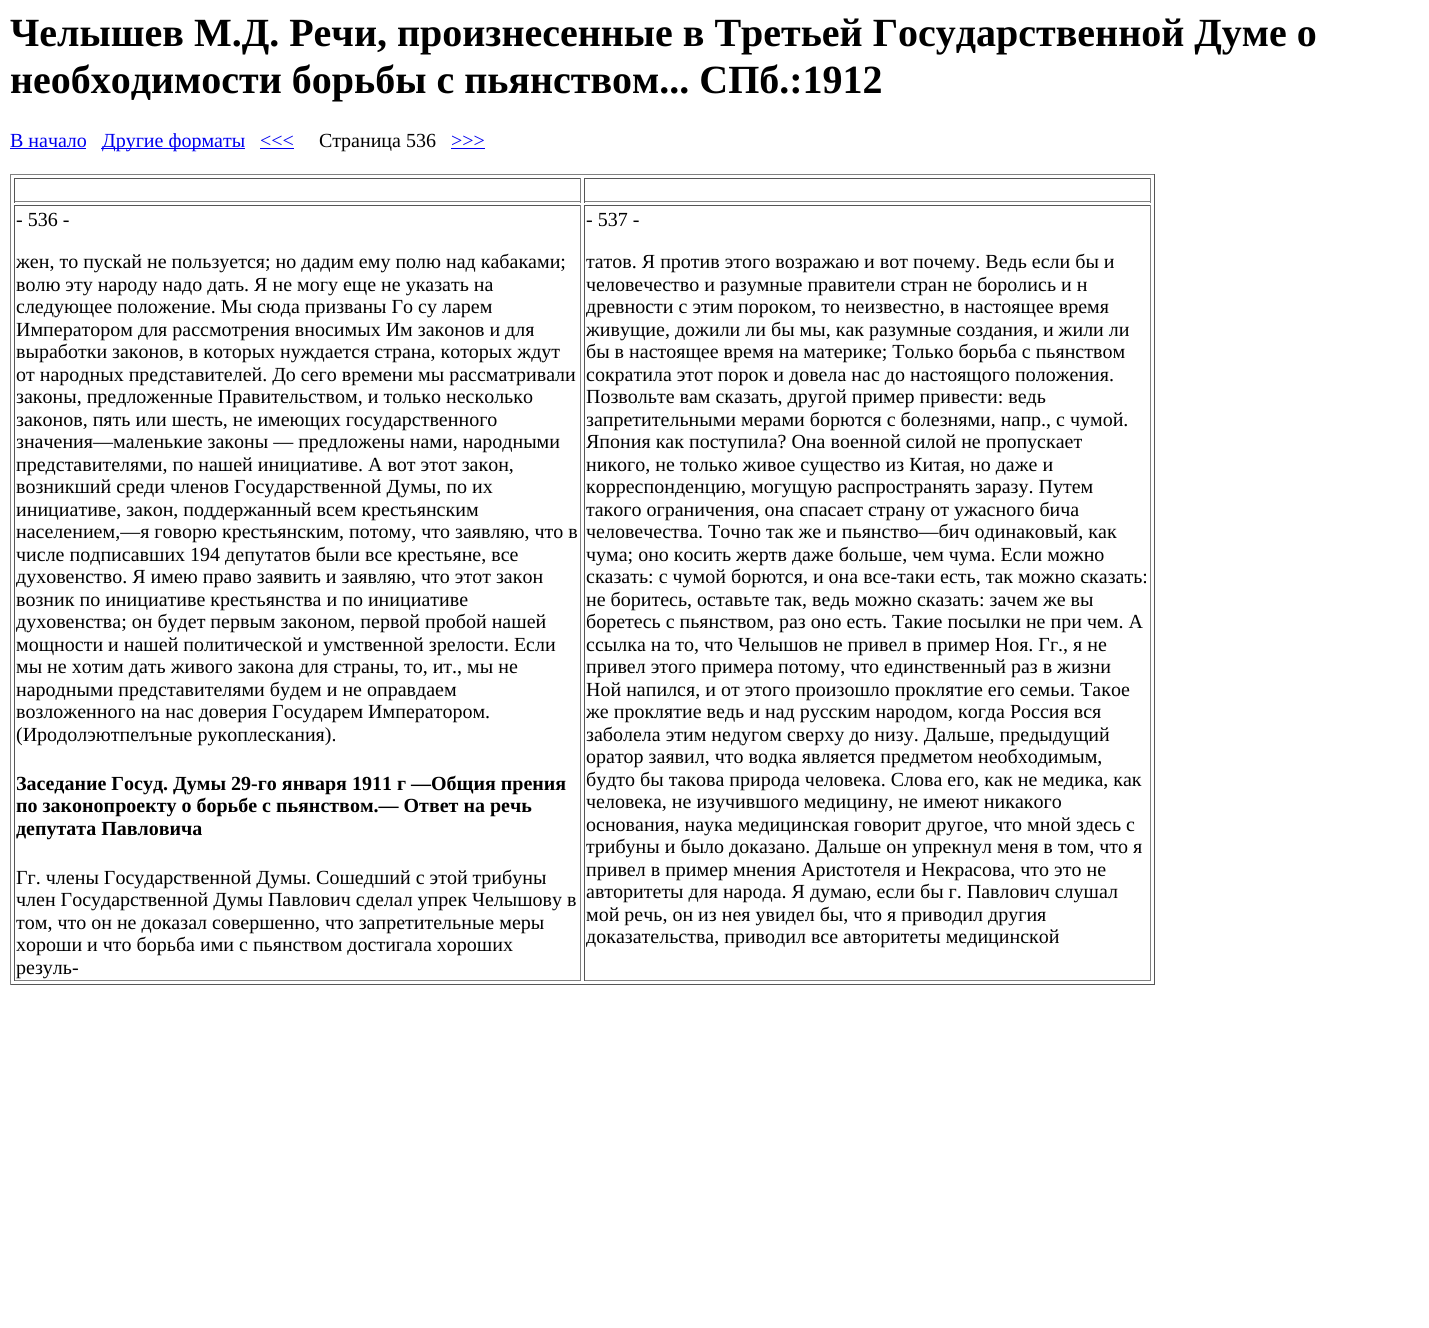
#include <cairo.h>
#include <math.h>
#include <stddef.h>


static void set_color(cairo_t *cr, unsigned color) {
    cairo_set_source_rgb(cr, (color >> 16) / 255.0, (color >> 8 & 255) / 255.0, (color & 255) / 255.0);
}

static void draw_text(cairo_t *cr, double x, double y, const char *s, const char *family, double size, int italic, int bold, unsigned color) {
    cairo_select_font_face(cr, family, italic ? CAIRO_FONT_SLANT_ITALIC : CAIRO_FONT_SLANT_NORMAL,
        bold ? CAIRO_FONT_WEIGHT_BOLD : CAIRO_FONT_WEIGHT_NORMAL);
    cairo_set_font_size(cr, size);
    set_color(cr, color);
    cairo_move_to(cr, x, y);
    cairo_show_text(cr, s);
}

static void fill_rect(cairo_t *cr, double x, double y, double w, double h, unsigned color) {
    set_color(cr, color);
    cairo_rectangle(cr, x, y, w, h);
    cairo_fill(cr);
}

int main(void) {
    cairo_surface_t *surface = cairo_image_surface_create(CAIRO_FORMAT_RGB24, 1429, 1328);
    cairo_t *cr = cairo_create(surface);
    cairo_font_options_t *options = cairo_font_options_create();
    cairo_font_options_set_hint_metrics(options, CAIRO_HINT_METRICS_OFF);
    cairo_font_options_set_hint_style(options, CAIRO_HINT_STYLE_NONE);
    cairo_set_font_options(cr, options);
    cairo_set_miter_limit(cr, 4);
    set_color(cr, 0xFFFFFF);
    cairo_paint(cr);
    draw_text(cr, 10, 46, "Челышев М.Д. Речи, произнесенные в Третьей Государственной Думе о", "Liberation Serif", 40, 0, 1, 0x000000);
    draw_text(cr, 10, 93, "необходимости борьбы с пьянством... СПб.:1912", "Liberation Serif", 40, 0, 1, 0x000000);
    draw_text(cr, 10, 147, "В начало", "Liberation Serif", 20, 0, 0, 0x0000EE);
    fill_rect(cr, 10, 148, 76, 1, 0x0000EE);
    fill_rect(cr, 101, 148, 144, 1, 0x0000EE);
    draw_text(cr, 102, 147, "Другие форматы", "Liberation Serif", 20, 0, 0, 0x0000EE);
    draw_text(cr, 260, 147, "<<<", "Liberation Serif", 20, 0, 0, 0x0000EE);
    fill_rect(cr, 260, 148, 34, 1, 0x0000EE);
    draw_text(cr, 319, 147, "Страница 536", "Liberation Serif", 20, 0, 0, 0x000000);
    draw_text(cr, 451, 147, ">>>", "Liberation Serif", 20, 0, 0, 0x0000EE);
    fill_rect(cr, 451, 148, 34, 1, 0x0000EE);
    fill_rect(cr, 10, 174, 1145, 1, 0x808080);
    fill_rect(cr, 1154, 174, 1, 811, 0x555555);
    fill_rect(cr, 10, 984, 1145, 1, 0x555555);
    fill_rect(cr, 10, 174, 1, 811, 0x808080);
    fill_rect(cr, 14, 178, 567, 1, 0x555555);
    fill_rect(cr, 580, 178, 1, 25, 0x808080);
    fill_rect(cr, 14, 201, 567, 1, 0x808080);
    fill_rect(cr, 14, 178, 1, 25, 0x555555);
    fill_rect(cr, 584, 178, 567, 1, 0x555555);
    fill_rect(cr, 1150, 178, 1, 25, 0x808080);
    fill_rect(cr, 584, 201, 567, 1, 0x808080);
    fill_rect(cr, 584, 178, 1, 25, 0x555555);
    fill_rect(cr, 14, 205, 567, 1, 0x555555);
    fill_rect(cr, 580, 205, 1, 776, 0x808080);
    fill_rect(cr, 14, 980, 567, 1, 0x808080);
    fill_rect(cr, 14, 205, 1, 776, 0x555555);
    draw_text(cr, 16, 226, "- 536 -", "Liberation Serif", 20, 0, 0, 0x000000);
    draw_text(cr, 16, 268, "жен, то пускай не пользуется; но дадим ему полю над кабаками;", "Liberation Serif", 20, 0, 0, 0x000000);
    draw_text(cr, 16, 291, "волю эту народу надо дать. Я не могу еще не указать на", "Liberation Serif", 20, 0, 0, 0x000000);
    draw_text(cr, 16, 313, "следующее положение. Мы сюда призваны Го су ларем", "Liberation Serif", 20, 0, 0, 0x000000);
    draw_text(cr, 16, 336, "Императором для рассмотрения вносимых Им законов и для", "Liberation Serif", 20, 0, 0, 0x000000);
    draw_text(cr, 16, 358, "выработки законов, в которых нуждается страна, которых ждут", "Liberation Serif", 20, 0, 0, 0x000000);
    draw_text(cr, 16, 381, "от народных представителей. До сего времени мы рассматривали", "Liberation Serif", 20, 0, 0, 0x000000);
    draw_text(cr, 16, 403, "законы, предложенные Правительством, и только несколько", "Liberation Serif", 20, 0, 0, 0x000000);
    draw_text(cr, 16, 426, "законов, пять или шесть, не имеющих государственного", "Liberation Serif", 20, 0, 0, 0x000000);
    draw_text(cr, 16, 448, "значения—маленькие законы — предложены нами, народными", "Liberation Serif", 20, 0, 0, 0x000000);
    draw_text(cr, 16, 471, "представителями, по нашей инициативе. А вот этот закон,", "Liberation Serif", 20, 0, 0, 0x000000);
    draw_text(cr, 16, 493, "возникший среди членов Государственной Думы, по их", "Liberation Serif", 20, 0, 0, 0x000000);
    draw_text(cr, 16, 516, "инициативе, закон, поддержанный всем крестьянским", "Liberation Serif", 20, 0, 0, 0x000000);
    draw_text(cr, 16, 538, "населением,—я говорю крестьянским, потому, что заявляю, что в", "Liberation Serif", 20, 0, 0, 0x000000);
    draw_text(cr, 16, 561, "числе подписавших 194 депутатов были все крестьяне, все", "Liberation Serif", 20, 0, 0, 0x000000);
    draw_text(cr, 16, 583, "духовенство. Я имею право заявить и заявляю, что этот закон", "Liberation Serif", 20, 0, 0, 0x000000);
    draw_text(cr, 16, 606, "возник по инициативе крестьянства и по инициативе", "Liberation Serif", 20, 0, 0, 0x000000);
    draw_text(cr, 16, 628, "духовенства; он будет первым законом, первой пробой нашей", "Liberation Serif", 20, 0, 0, 0x000000);
    draw_text(cr, 16, 651, "мощности и нашей политической и умственной зрелости. Если", "Liberation Serif", 20, 0, 0, 0x000000);
    draw_text(cr, 16, 673, "мы не хотим дать живого закона для страны, то, ит., мы не", "Liberation Serif", 20, 0, 0, 0x000000);
    draw_text(cr, 16, 696, "народными представителями будем и не оправдаем", "Liberation Serif", 20, 0, 0, 0x000000);
    draw_text(cr, 16, 718, "возложенного на нас доверия Государем Императором.", "Liberation Serif", 20, 0, 0, 0x000000);
    draw_text(cr, 16, 741, "(Иродолэютпелъные рукоплескания).", "Liberation Serif", 20, 0, 0, 0x000000);
    draw_text(cr, 16, 790, "Заседание Госуд. Думы 29-го января 1911 г —Общия прения", "Liberation Serif", 20, 0, 1, 0x000000);
    draw_text(cr, 16, 812, "по законопроекту о борьбе с пьянством.— Ответ на речь", "Liberation Serif", 20, 0, 1, 0x000000);
    draw_text(cr, 16, 835, "депутата Павловича", "Liberation Serif", 20, 0, 1, 0x000000);
    draw_text(cr, 16, 884, "Гг. члены Государственной Думы. Сошедший с этой трибуны", "Liberation Serif", 20, 0, 0, 0x000000);
    draw_text(cr, 16, 906, "член Государственной Думы Павлович сделал упрек Челышову в", "Liberation Serif", 20, 0, 0, 0x000000);
    draw_text(cr, 16, 929, "том, что он не доказал совершенно, что запретительные меры", "Liberation Serif", 20, 0, 0, 0x000000);
    draw_text(cr, 16, 951, "хороши и что борьба ими с пьянством достигала хороших", "Liberation Serif", 20, 0, 0, 0x000000);
    draw_text(cr, 16, 974, "резуль-", "Liberation Serif", 20, 0, 0, 0x000000);
    fill_rect(cr, 584, 205, 567, 1, 0x555555);
    fill_rect(cr, 1150, 205, 1, 776, 0x808080);
    fill_rect(cr, 584, 980, 567, 1, 0x808080);
    fill_rect(cr, 584, 205, 1, 776, 0x555555);
    draw_text(cr, 586, 226, "- 537 -", "Liberation Serif", 20, 0, 0, 0x000000);
    draw_text(cr, 586, 268, "татов. Я против этого возражаю и вот почему. Ведь если бы и", "Liberation Serif", 20, 0, 0, 0x000000);
    draw_text(cr, 586, 291, "человечество и разумные правители стран не боролись и н", "Liberation Serif", 20, 0, 0, 0x000000);
    draw_text(cr, 586, 313, "древности с этим пороком, то неизвестно, в настоящее время", "Liberation Serif", 20, 0, 0, 0x000000);
    draw_text(cr, 586, 336, "живущие, дожили ли бы мы, как разумные создания, и жили ли", "Liberation Serif", 20, 0, 0, 0x000000);
    draw_text(cr, 586, 358, "бы в настоящее время на материке; Только борьба с пьянством", "Liberation Serif", 20, 0, 0, 0x000000);
    draw_text(cr, 586, 381, "сократила этот порок и довела нас до настоящого положения.", "Liberation Serif", 20, 0, 0, 0x000000);
    draw_text(cr, 586, 403, "Позвольте вам сказать, другой пример привести: ведь", "Liberation Serif", 20, 0, 0, 0x000000);
    draw_text(cr, 586, 426, "запретительными мерами борются с болезнями, напр., с чумой.", "Liberation Serif", 20, 0, 0, 0x000000);
    draw_text(cr, 586, 448, "Япония как поступила? Она военной силой не пропускает", "Liberation Serif", 20, 0, 0, 0x000000);
    draw_text(cr, 586, 471, "никого, не только живое существо из Китая, но даже и", "Liberation Serif", 20, 0, 0, 0x000000);
    draw_text(cr, 586, 493, "корреспонденцию, могущую распространять заразу. Путем", "Liberation Serif", 20, 0, 0, 0x000000);
    draw_text(cr, 586, 516, "такого ограничения, она спасает страну от ужасного бича", "Liberation Serif", 20, 0, 0, 0x000000);
    draw_text(cr, 586, 538, "человечества. Точно так же и пьянство—бич одинаковый, как", "Liberation Serif", 20, 0, 0, 0x000000);
    draw_text(cr, 586, 561, "чума; оно косить жертв даже больше, чем чума. Если можно", "Liberation Serif", 20, 0, 0, 0x000000);
    draw_text(cr, 586, 583, "сказать: с чумой борются, и она все-таки есть, так можно сказать:", "Liberation Serif", 20, 0, 0, 0x000000);
    draw_text(cr, 586, 606, "не боритесь, оставьте так, ведь можно сказать: зачем же вы", "Liberation Serif", 20, 0, 0, 0x000000);
    draw_text(cr, 586, 628, "боретесь с пьянством, раз оно есть. Такие посылки не при чем. А", "Liberation Serif", 20, 0, 0, 0x000000);
    draw_text(cr, 586, 651, "ссылка на то, что Челышов не привел в пример Ноя. Гг., я не", "Liberation Serif", 20, 0, 0, 0x000000);
    draw_text(cr, 586, 673, "привел этого примера потому, что единственный раз в жизни", "Liberation Serif", 20, 0, 0, 0x000000);
    draw_text(cr, 586, 696, "Ной напился, и от этого произошло проклятие его семьи. Такое", "Liberation Serif", 20, 0, 0, 0x000000);
    draw_text(cr, 586, 718, "же проклятие ведь и над русским народом, когда Россия вся", "Liberation Serif", 20, 0, 0, 0x000000);
    draw_text(cr, 586, 741, "заболела этим недугом сверху до низу. Дальше, предыдущий", "Liberation Serif", 20, 0, 0, 0x000000);
    draw_text(cr, 586, 763, "оратор заявил, что водка является предметом необходимым,", "Liberation Serif", 20, 0, 0, 0x000000);
    draw_text(cr, 586, 786, "будто бы такова природа человека. Слова его, как не медика, как", "Liberation Serif", 20, 0, 0, 0x000000);
    draw_text(cr, 586, 808, "человека, не изучившого медицину, не имеют никакого", "Liberation Serif", 20, 0, 0, 0x000000);
    draw_text(cr, 586, 831, "основания, наука медицинская говорит другое, что мной здесь с", "Liberation Serif", 20, 0, 0, 0x000000);
    draw_text(cr, 586, 853, "трибуны и было доказано. Дальше он упрекнул меня в том, что я", "Liberation Serif", 20, 0, 0, 0x000000);
    draw_text(cr, 586, 876, "привел в пример мнения Аристотеля и Некрасова, что это не", "Liberation Serif", 20, 0, 0, 0x000000);
    draw_text(cr, 586, 898, "авторитеты для народа. Я думаю, если бы г. Павлович слушал", "Liberation Serif", 20, 0, 0, 0x000000);
    draw_text(cr, 586, 921, "мой речь, он из нея увидел бы, что я приводил другия", "Liberation Serif", 20, 0, 0, 0x000000);
    draw_text(cr, 586, 943, "доказательства, приводил все авторитеты медицинской", "Liberation Serif", 20, 0, 0, 0x000000);
    cairo_surface_write_to_png(surface, "output.png");
    cairo_font_options_destroy(options);
    cairo_destroy(cr);
    cairo_surface_destroy(surface);
    return 0;
}
